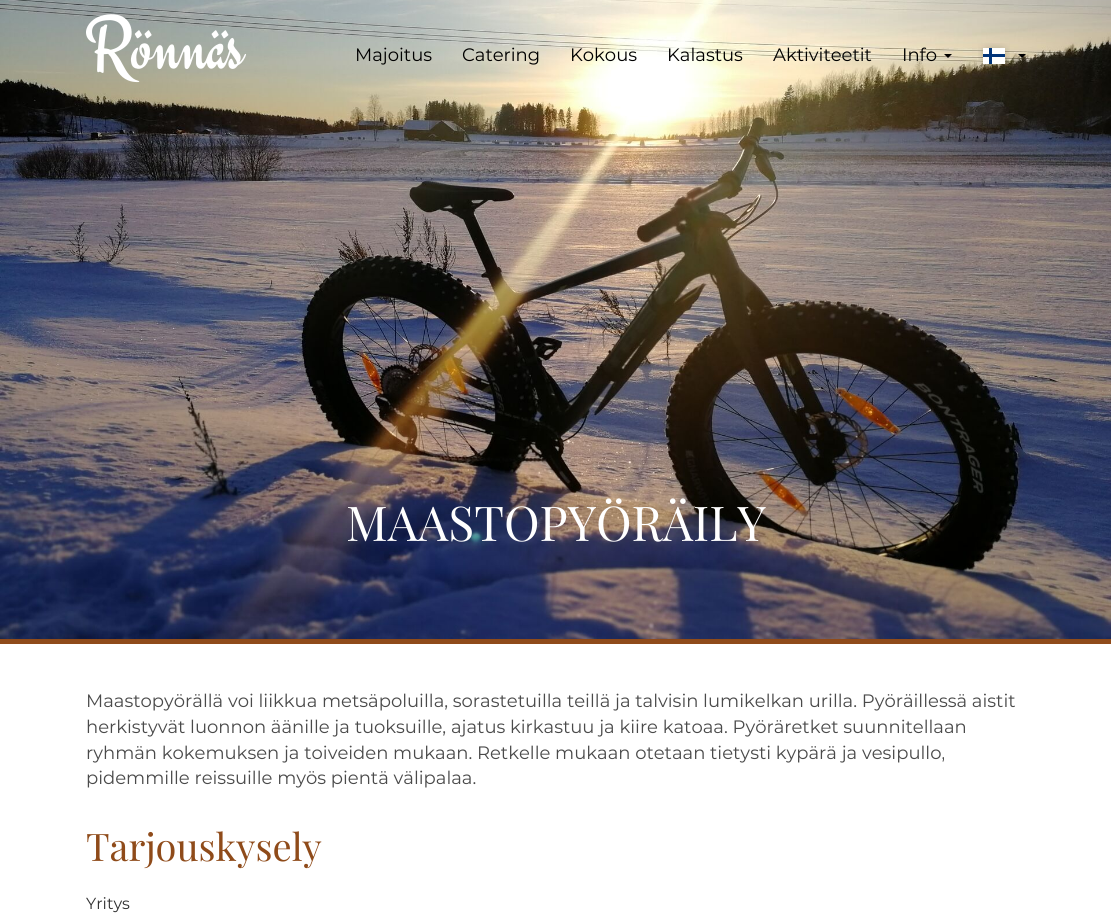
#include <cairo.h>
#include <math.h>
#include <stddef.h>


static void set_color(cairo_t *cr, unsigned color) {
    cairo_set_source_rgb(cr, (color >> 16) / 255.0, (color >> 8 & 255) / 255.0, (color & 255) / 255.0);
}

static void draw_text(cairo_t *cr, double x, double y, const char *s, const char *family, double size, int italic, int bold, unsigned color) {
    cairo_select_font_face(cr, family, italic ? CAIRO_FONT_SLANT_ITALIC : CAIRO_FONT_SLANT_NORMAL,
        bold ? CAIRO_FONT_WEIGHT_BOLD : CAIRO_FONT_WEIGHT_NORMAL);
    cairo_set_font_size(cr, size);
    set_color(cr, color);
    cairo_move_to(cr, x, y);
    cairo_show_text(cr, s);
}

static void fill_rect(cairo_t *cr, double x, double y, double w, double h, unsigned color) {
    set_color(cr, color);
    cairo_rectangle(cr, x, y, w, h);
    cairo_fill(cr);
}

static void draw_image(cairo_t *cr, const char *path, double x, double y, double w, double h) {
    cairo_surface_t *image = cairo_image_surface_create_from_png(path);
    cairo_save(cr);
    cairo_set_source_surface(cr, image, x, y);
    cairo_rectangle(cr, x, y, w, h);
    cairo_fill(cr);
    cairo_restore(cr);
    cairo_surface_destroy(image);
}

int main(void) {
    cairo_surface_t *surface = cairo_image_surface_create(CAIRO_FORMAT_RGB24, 1111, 913);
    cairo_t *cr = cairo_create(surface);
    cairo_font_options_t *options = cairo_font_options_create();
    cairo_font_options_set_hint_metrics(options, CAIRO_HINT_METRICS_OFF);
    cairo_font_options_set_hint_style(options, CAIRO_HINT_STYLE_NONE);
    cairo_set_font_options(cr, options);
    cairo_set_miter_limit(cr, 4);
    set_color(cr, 0xFFFFFF);
    cairo_paint(cr);
    draw_image(cr, "assets/img3.png", 0, 0, 1111, 639);
    draw_image(cr, "assets/img1.png", 86, 14, 160, 69);
    draw_text(cr, 355, 61, "Majoitus", "Montserrat", 18, 0, 0, 0x000000);
    draw_text(cr, 462, 61, "Catering", "Montserrat", 18, 0, 0, 0x000000);
    draw_text(cr, 570, 61, "Kokous", "Montserrat", 18, 0, 0, 0x000000);
    draw_text(cr, 667, 61, "Kalastus", "Montserrat", 18, 0, 0, 0x000000);
    draw_text(cr, 773, 61, "Aktiviteetit", "Montserrat", 18, 0, 0, 0x000000);
    draw_text(cr, 902, 61, "Info", "Montserrat", 18, 0, 0, 0x000000);
    cairo_new_path(cr);
    cairo_move_to(cr, 944, 54);
    cairo_line_to(cr, 952, 54);
    cairo_line_to(cr, 948, 58);
    cairo_close_path(cr);
    cairo_fill(cr);
    draw_image(cr, "assets/img2.png", 978, 43, 32, 25);
    cairo_new_path(cr);
    cairo_move_to(cr, 1018, 54);
    cairo_line_to(cr, 1026, 54);
    cairo_line_to(cr, 1022, 58);
    cairo_close_path(cr);
    cairo_fill(cr);
    fill_rect(cr, 0, 639, 1111, 5, 0x8F4B1A);
    draw_text(cr, 346, 541, "MAASTOPYÖRÄILY", "Playfair Display", 48, 0, 0, 0xFFFFFF);
    draw_text(cr, 86, 707, "Maastopyörällä voi liikkua metsäpoluilla, sorastetuilla teillä ja talvisin lumikelkan urilla. Pyöräillessä aistit", "Montserrat", 18, 0, 0, 0x4A4A4A);
    draw_text(cr, 86, 733, "herkistyvät luonnon äänille ja tuoksuille, ajatus kirkastuu ja kiire katoaa. Pyöräretket suunnitellaan", "Montserrat", 18, 0, 0, 0x4A4A4A);
    draw_text(cr, 86, 759, "ryhmän kokemuksen ja toiveiden mukaan. Retkelle mukaan otetaan tietysti kypärä ja vesipullo,", "Montserrat", 18, 0, 0, 0x4A4A4A);
    draw_text(cr, 86, 784, "pidemmille reissuille myös pientä välipalaa.", "Montserrat", 18, 0, 0, 0x4A4A4A);
    draw_text(cr, 86, 861, "Tarjouskysely", "Playfair Display", 38, 0, 0, 0x8F4B1A);
    draw_text(cr, 86, 909, "Yritys", "Montserrat", 16, 0, 0, 0x303030);
    cairo_surface_write_to_png(surface, "output.png");
    cairo_font_options_destroy(options);
    cairo_destroy(cr);
    cairo_surface_destroy(surface);
    return 0;
}
